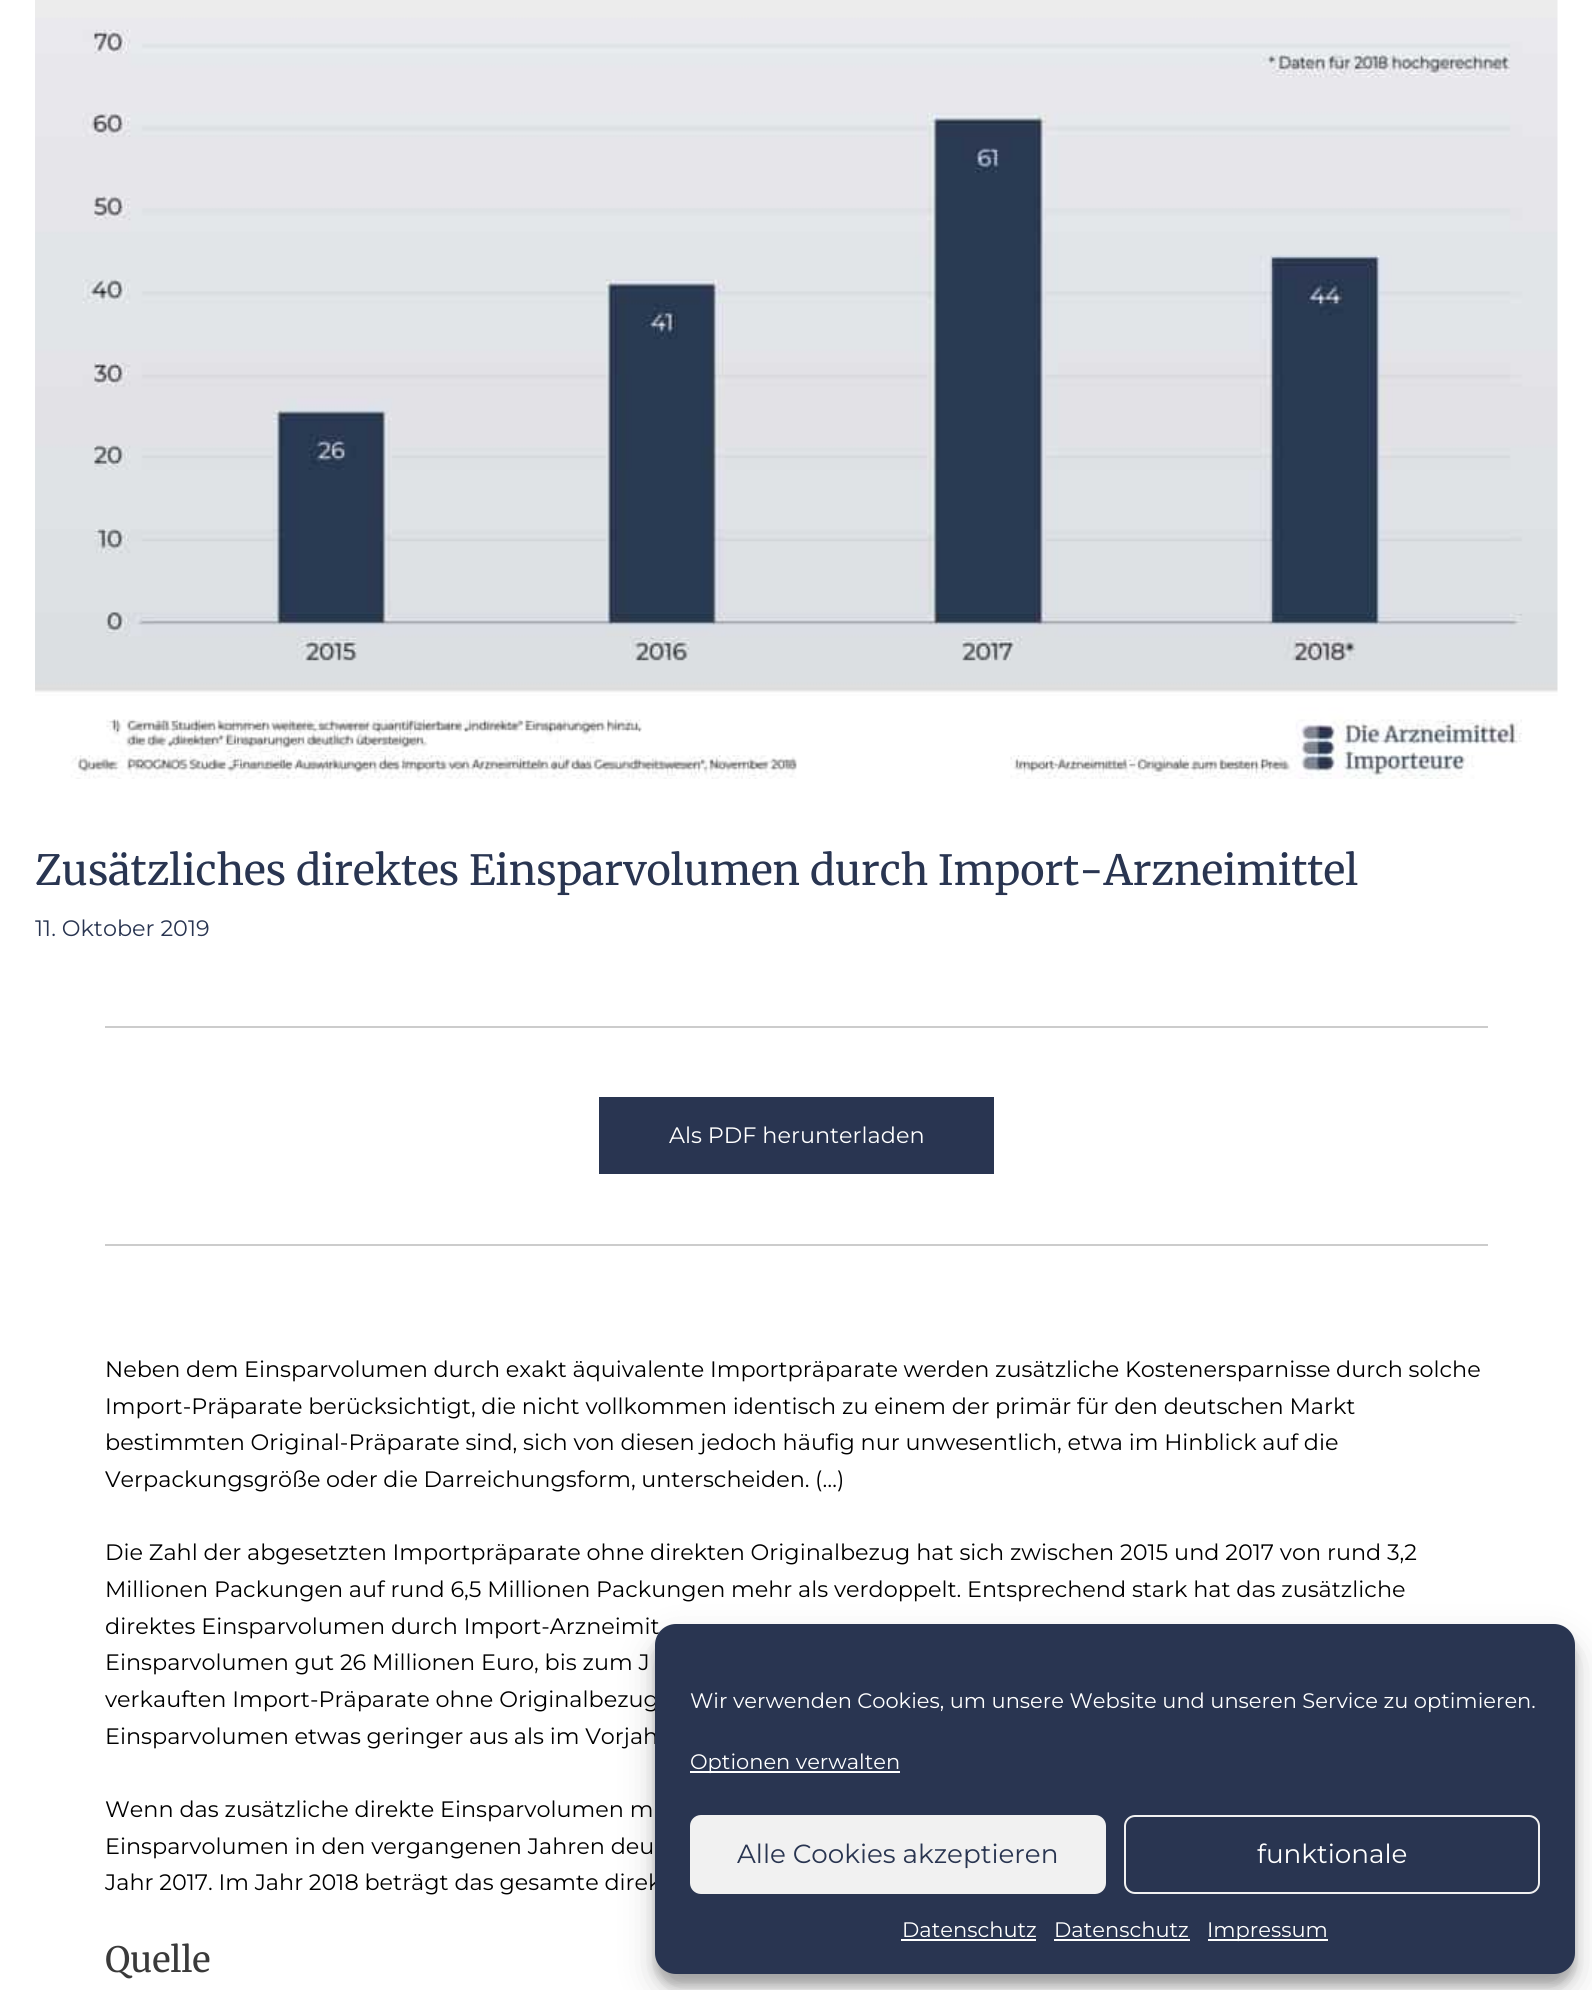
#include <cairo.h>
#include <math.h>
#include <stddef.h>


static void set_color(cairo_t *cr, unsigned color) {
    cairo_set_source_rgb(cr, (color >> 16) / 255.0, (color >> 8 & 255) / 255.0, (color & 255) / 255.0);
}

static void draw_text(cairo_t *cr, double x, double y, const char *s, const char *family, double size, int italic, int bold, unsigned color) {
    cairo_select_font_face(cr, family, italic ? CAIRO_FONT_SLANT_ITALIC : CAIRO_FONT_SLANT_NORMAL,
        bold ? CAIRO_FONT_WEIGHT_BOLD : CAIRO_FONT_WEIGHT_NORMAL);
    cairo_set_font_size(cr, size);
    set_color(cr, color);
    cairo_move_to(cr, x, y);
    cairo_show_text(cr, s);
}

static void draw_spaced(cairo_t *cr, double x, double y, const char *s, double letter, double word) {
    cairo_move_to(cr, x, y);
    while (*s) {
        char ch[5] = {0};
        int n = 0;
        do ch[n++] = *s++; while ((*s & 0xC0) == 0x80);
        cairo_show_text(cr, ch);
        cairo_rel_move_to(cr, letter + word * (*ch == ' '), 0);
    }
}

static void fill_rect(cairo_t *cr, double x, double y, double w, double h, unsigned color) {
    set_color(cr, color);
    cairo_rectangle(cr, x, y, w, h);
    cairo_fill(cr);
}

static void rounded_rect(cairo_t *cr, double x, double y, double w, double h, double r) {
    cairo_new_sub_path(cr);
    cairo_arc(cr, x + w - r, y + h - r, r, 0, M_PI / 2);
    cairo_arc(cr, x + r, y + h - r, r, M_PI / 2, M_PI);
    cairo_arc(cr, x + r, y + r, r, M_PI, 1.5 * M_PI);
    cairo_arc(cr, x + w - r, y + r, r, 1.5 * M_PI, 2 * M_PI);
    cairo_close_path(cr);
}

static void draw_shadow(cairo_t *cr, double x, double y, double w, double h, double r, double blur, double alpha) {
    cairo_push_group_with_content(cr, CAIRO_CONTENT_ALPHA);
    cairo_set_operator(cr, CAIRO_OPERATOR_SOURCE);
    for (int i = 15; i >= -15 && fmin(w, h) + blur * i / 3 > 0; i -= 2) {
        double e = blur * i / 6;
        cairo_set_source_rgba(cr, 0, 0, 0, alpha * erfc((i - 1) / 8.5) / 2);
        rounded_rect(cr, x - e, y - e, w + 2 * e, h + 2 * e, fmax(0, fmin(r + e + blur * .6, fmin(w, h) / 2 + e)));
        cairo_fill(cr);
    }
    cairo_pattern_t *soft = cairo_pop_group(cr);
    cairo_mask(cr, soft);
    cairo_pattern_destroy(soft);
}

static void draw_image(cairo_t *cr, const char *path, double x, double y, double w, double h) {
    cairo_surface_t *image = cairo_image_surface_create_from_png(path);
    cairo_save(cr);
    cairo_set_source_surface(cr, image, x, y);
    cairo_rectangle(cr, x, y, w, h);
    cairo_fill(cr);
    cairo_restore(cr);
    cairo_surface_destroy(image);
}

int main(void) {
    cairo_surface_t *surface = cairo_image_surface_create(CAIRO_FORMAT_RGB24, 1592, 1990);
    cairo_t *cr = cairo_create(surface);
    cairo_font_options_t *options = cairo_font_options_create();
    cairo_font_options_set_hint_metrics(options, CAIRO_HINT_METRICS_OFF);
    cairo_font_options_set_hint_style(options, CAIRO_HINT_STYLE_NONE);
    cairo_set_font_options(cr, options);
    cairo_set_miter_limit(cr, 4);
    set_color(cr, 0xFFFFFF);
    cairo_paint(cr);
    draw_image(cr, "assets/img1.png", 35, 0, 1523, 779);
    draw_text(cr, 35, 885, "Zusätzliches direktes Einsparvolumen durch Import-Arzneimittel", "Merriweather Light", 41.5, 0, 0, 0x293551);
    draw_text(cr, 35, 936, "11. Oktober 2019", "Montserrat Thin", 22.35, 0, 0, 0x293551);
    fill_rect(cr, 105, 1026, 1383, 2, 0xCCCCCC);
    fill_rect(cr, 599, 1097, 395, 77, 0x293551);
    draw_text(cr, 669, 1143, "Als PDF herunterladen", "Montserrat Thin", 22.35, 0, 0, 0xFFFFFF);
    fill_rect(cr, 105, 1244, 1383, 2, 0xCCCCCC);
    set_color(cr, 0x000000);
    draw_spaced(cr, 105, 1377, "Neben dem Einsparvolumen durch exakt äquivalente Importpräparate werden zusätzliche Kostenersparnisse durch solche", 0, -0.25);
    draw_spaced(cr, 105, 1414, "Import-Präparate berücksichtigt, die nicht vollkommen identisch zu einem der primär für den deutschen Markt", 0, -0.1);
    draw_spaced(cr, 105, 1450, "bestimmten Original-Präparate sind, sich von diesen jedoch häufig nur unwesentlich, etwa im Hinblick auf die", 0, -0.1);
    draw_spaced(cr, 105, 1487, "Verpackungsgröße oder die Darreichungsform, unterscheiden. (…)", 0, -0.25);
    draw_text(cr, 105, 1560, "Die Zahl der abgesetzten Importpräparate ohne direkten Originalbezug hat sich zwischen 2015 und 2017 von rund 3,2", "Montserrat Thin", 22.35, 0, 0, 0x000000);
    draw_spaced(cr, 105, 1597, "Millionen Packungen auf rund 6,5 Millionen Packungen mehr als verdoppelt. Entsprechend stark hat das zusätzliche", 0, -0.1);
    draw_text(cr, 105, 1634, "direktes Einsparvolumen durch Import-Arzneimit", "Montserrat Thin", 22.35, 0, 0, 0x000000);
    draw_text(cr, 105, 1670, "Einsparvolumen gut 26 Millionen Euro, bis zum J", "Montserrat Thin", 22.35, 0, 0, 0x000000);
    draw_text(cr, 105, 1707, "verkauften Import-Präparate ohne Originalbezug", "Montserrat Thin", 22.35, 0, 0, 0x000000);
    draw_spaced(cr, 105, 1744, "Einsparvolumen etwas geringer aus als im Vorjah", 0, -0.1);
    draw_text(cr, 105, 1817, "Wenn das zusätzliche direkte Einsparvolumen m", "Montserrat Thin", 22.35, 0, 0, 0x000000);
    draw_text(cr, 105, 1854, "Einsparvolumen in den vergangenen Jahren deu", "Montserrat Thin", 22.35, 0, 0, 0x000000);
    draw_spaced(cr, 105, 1890, "Jahr 2017. Im Jahr 2018 beträgt das gesamte direk", 0, -0.1);
    draw_text(cr, 105, 1972, "Quelle", "Merriweather Light", 35, 0, 0, 0x3A3A3A);
    set_color(cr, 0x000000);
    draw_shadow(cr, 655, 1635, 920, 350, 21, 5, 0.23);
    draw_shadow(cr, 655, 1642, 920, 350, 21, 17.5, 0.19);
    set_color(cr, 0x293551);
    rounded_rect(cr, 655, 1624, 920, 350, 21);
    cairo_fill(cr);
    draw_text(cr, 690, 1708, "Wir verwenden Cookies, um unsere Website und unseren Service zu optimieren.", "Montserrat Thin", 21, 0, 0, 0xFFFFFF);
    fill_rect(cr, 690, 1771, 210, 2, 0xFFFFFF);
    draw_text(cr, 690, 1769, "Optionen verwalten", "Montserrat Thin", 21, 0, 0, 0xFFFFFF);
    set_color(cr, 0xF1F1F1);
    rounded_rect(cr, 691, 1816, 414, 77, 10);
    cairo_fill_preserve(cr);
    cairo_stroke(cr);
    draw_text(cr, 737, 1863, "Alle Cookies akzeptieren", "Montserrat Thin", 26.25, 0, 0, 0x293551);
    rounded_rect(cr, 1125, 1816, 414, 77, 10);
    set_color(cr, 0xF1F1F1);
    cairo_stroke(cr);
    draw_text(cr, 1257, 1863, "funktionale", "Montserrat Thin", 26.25, 0, 0, 0xFFFFFF);
    draw_text(cr, 902, 1937, "Datenschutz", "Montserrat Thin", 21, 0, 0, 0xFFFFFF);
    fill_rect(cr, 901, 1939, 135, 2, 0xFFFFFF);
    draw_text(cr, 1054, 1937, "Datenschutz", "Montserrat Thin", 21, 0, 0, 0xFFFFFF);
    fill_rect(cr, 1054, 1939, 136, 2, 0xFFFFFF);
    fill_rect(cr, 1208, 1939, 120, 2, 0xFFFFFF);
    draw_text(cr, 1207, 1937, "Impressum", "Montserrat Thin", 21, 0, 0, 0xFFFFFF);
    cairo_surface_write_to_png(surface, "output.png");
    cairo_font_options_destroy(options);
    cairo_destroy(cr);
    cairo_surface_destroy(surface);
    return 0;
}
